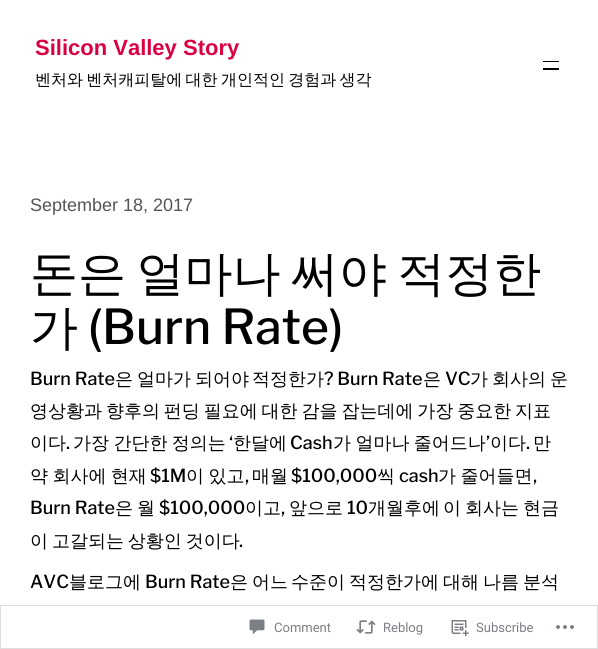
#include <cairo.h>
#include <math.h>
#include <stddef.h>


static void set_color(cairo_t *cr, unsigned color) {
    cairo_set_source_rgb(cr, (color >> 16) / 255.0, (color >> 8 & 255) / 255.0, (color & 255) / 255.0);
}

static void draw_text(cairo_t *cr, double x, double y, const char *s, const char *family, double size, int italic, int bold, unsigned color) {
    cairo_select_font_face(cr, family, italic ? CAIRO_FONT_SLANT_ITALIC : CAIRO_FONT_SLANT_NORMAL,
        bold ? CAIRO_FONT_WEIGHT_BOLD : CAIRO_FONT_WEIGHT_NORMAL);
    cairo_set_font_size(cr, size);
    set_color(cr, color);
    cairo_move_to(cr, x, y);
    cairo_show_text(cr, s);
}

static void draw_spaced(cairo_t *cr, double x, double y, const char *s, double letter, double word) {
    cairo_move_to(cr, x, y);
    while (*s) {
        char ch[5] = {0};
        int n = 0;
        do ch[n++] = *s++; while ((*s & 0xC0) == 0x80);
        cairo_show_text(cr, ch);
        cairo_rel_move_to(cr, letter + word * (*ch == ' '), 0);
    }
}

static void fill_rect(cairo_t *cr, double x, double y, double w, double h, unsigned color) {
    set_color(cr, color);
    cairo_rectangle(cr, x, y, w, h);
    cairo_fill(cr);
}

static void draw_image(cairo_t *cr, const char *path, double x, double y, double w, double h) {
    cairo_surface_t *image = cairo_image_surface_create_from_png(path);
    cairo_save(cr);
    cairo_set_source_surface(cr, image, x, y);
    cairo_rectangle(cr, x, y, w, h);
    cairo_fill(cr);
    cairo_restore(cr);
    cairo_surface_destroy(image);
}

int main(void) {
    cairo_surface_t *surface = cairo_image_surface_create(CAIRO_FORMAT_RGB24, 598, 649);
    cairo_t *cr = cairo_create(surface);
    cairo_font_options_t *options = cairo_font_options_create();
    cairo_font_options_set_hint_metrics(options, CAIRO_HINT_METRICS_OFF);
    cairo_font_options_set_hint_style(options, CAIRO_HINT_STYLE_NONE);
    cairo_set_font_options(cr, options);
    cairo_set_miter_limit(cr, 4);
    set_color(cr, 0xFFFFFF);
    cairo_paint(cr);
    draw_text(cr, 35, 55, "Silicon Valley Story", "Liberation Sans", 22, 0, 1, 0xDB0042);
    cairo_select_font_face(cr, "WenQuanYi Zen Hei Medium", CAIRO_FONT_SLANT_NORMAL, CAIRO_FONT_WEIGHT_NORMAL);
    cairo_set_font_size(cr, 16);
    set_color(cr, 0x000000);
    draw_spaced(cr, 35, 85, "벤처와 벤처캐피탈에 대한 개인적인 경험과 생각", 0, -1.5);
    fill_rect(cr, 543, 61, 16, 1, 0x000000);
    fill_rect(cr, 543, 68, 16, 2, 0x000000);
    draw_text(cr, 30, 211, "September 18, 2017", "Liberation Sans", 18, 0, 0, 0x555555);
    cairo_select_font_face(cr, "WenQuanYi Zen Hei Medium", CAIRO_FONT_SLANT_NORMAL, CAIRO_FONT_WEIGHT_NORMAL);
    cairo_set_font_size(cr, 48);
    set_color(cr, 0x000000);
    draw_spaced(cr, 30, 290, "돈은 얼마나 써야 적정한", 0, -4);
    draw_text(cr, 30, 344, "가", "WenQuanYi Zen Hei Medium", 48, 0, 0, 0x000000);
    draw_text(cr, 88, 344, "(Burn Rate)", "Libre Franklin Medium", 48, 0, 0, 0x000000);
    draw_text(cr, 30, 385, "Burn Rate", "Libre Franklin Medium", 18, 0, 0, 0x000000);
    draw_text(cr, 115, 385, "은", "WenQuanYi Zen Hei Medium", 18, 0, 0, 0x000000);
    draw_text(cr, 137, 385, "얼마가", "WenQuanYi Zen Hei Medium", 18, 0, 0, 0x000000);
    draw_text(cr, 195, 385, "되어야", "WenQuanYi Zen Hei Medium", 18, 0, 0, 0x000000);
    draw_text(cr, 252, 385, "적정한가", "WenQuanYi Zen Hei Medium", 18, 0, 0, 0x000000);
    draw_text(cr, 324, 385, "? Burn Rate", "Libre Franklin Medium", 18, 0, 0, 0x000000);
    draw_text(cr, 423, 385, "은", "WenQuanYi Zen Hei Medium", 18, 0, 0, 0x000000);
    draw_text(cr, 445, 385, "VC", "Libre Franklin Medium", 18, 0, 0, 0x000000);
    draw_text(cr, 470, 385, "가", "WenQuanYi Zen Hei Medium", 18, 0, 0, 0x000000);
    draw_text(cr, 492, 385, "회사의", "WenQuanYi Zen Hei Medium", 18, 0, 0, 0x000000);
    draw_text(cr, 550, 385, "운", "WenQuanYi Zen Hei Medium", 18, 0, 0, 0x000000);
    draw_spaced(cr, 30, 417, "영상황과 향후의 펀딩 필요에 대한 감을 잡는데에 가장 중요한 지표", 0, -1.5);
    draw_text(cr, 30, 449, "이다", "WenQuanYi Zen Hei Medium", 18, 0, 0, 0x000000);
    draw_text(cr, 66, 449, ".", "Libre Franklin Medium", 18, 0, 0, 0x000000);
    cairo_select_font_face(cr, "WenQuanYi Zen Hei Medium", CAIRO_FONT_SLANT_NORMAL, CAIRO_FONT_WEIGHT_NORMAL);
    draw_spaced(cr, 73, 449, "가장 간단한 정의는", 0, -1);
    draw_text(cr, 229, 449, "‘", "Libre Franklin Medium", 18, 0, 0, 0x000000);
    draw_text(cr, 233, 449, "한달에", "WenQuanYi Zen Hei Medium", 18, 0, 0, 0x000000);
    draw_text(cr, 290, 449, "Cash", "Libre Franklin Medium", 18, 0, 0, 0x000000);
    cairo_select_font_face(cr, "WenQuanYi Zen Hei Medium", CAIRO_FONT_SLANT_NORMAL, CAIRO_FONT_WEIGHT_NORMAL);
    draw_spaced(cr, 333, 449, "가 얼마나 줄어드나", 0, -1);
    draw_text(cr, 486, 449, "’", "Libre Franklin Medium", 18, 0, 0, 0x000000);
    draw_text(cr, 490, 449, "이다", "WenQuanYi Zen Hei Medium", 18, 0, 0, 0x000000);
    draw_text(cr, 526, 449, ".", "Libre Franklin Medium", 18, 0, 0, 0x000000);
    draw_text(cr, 533, 449, "만", "WenQuanYi Zen Hei Medium", 18, 0, 0, 0x000000);
    draw_spaced(cr, 30, 482, "약 회사에 현재", 0, -1);
    draw_text(cr, 150, 482, "$1M", "Libre Franklin Medium", 18, 0, 0, 0x000000);
    cairo_select_font_face(cr, "WenQuanYi Zen Hei Medium", CAIRO_FONT_SLANT_NORMAL, CAIRO_FONT_WEIGHT_NORMAL);
    draw_spaced(cr, 186, 482, "이 있고", 0, -1);
    draw_text(cr, 245, 482, ",", "Libre Franklin Medium", 18, 0, 0, 0x000000);
    draw_text(cr, 252, 482, "매월", "WenQuanYi Zen Hei Medium", 18, 0, 0, 0x000000);
    draw_text(cr, 291, 482, "$100,000", "Libre Franklin Medium", 18, 0, 0, 0x000000);
    draw_text(cr, 377, 482, "씩", "WenQuanYi Zen Hei Medium", 18, 0, 0, 0x000000);
    draw_text(cr, 399, 482, "cash", "Libre Franklin Medium", 18, 0, 0, 0x000000);
    cairo_select_font_face(cr, "WenQuanYi Zen Hei Medium", CAIRO_FONT_SLANT_NORMAL, CAIRO_FONT_WEIGHT_NORMAL);
    draw_spaced(cr, 438, 482, "가 줄어들면", 0, -1);
    draw_text(cr, 533, 482, ",", "Libre Franklin Medium", 18, 0, 0, 0x000000);
    draw_text(cr, 30, 514, "Burn Rate", "Libre Franklin Medium", 18, 0, 0, 0x000000);
    draw_text(cr, 115, 514, "은", "WenQuanYi Zen Hei Medium", 18, 0, 0, 0x000000);
    draw_text(cr, 137, 514, "월", "WenQuanYi Zen Hei Medium", 18, 0, 0, 0x000000);
    draw_text(cr, 159, 514, "$100,000", "Libre Franklin Medium", 18, 0, 0, 0x000000);
    draw_text(cr, 245, 514, "이고", "WenQuanYi Zen Hei Medium", 18, 0, 0, 0x000000);
    draw_text(cr, 281, 514, ",", "Libre Franklin Medium", 18, 0, 0, 0x000000);
    draw_text(cr, 289, 514, "앞으로", "WenQuanYi Zen Hei Medium", 18, 0, 0, 0x000000);
    draw_text(cr, 347, 514, "10", "Libre Franklin Medium", 18, 0, 0, 0x000000);
    draw_text(cr, 368, 514, "개월후에", "WenQuanYi Zen Hei Medium", 18, 0, 0, 0x000000);
    draw_text(cr, 443, 514, "이", "WenQuanYi Zen Hei Medium", 18, 0, 0, 0x000000);
    draw_text(cr, 465, 514, "회사는", "WenQuanYi Zen Hei Medium", 18, 0, 0, 0x000000);
    draw_text(cr, 523, 514, "현금", "WenQuanYi Zen Hei Medium", 18, 0, 0, 0x000000);
    draw_spaced(cr, 30, 547, "이 고갈되는 상황인 것이다", 0, -1.5);
    draw_text(cr, 239, 547, ".", "Libre Franklin Medium", 18, 0, 0, 0x000000);
    draw_text(cr, 30, 588, "AVC", "Libre Franklin Medium", 18, 0, 0, 0x000000);
    draw_text(cr, 69, 588, "블로그에", "WenQuanYi Zen Hei Medium", 18, 0, 0, 0x000000);
    draw_text(cr, 145, 588, "Burn Rate", "Libre Franklin Medium", 18, 0, 0, 0x000000);
    draw_text(cr, 230, 588, "은", "WenQuanYi Zen Hei Medium", 18, 0, 0, 0x000000);
    draw_text(cr, 252, 588, "어느", "WenQuanYi Zen Hei Medium", 18, 0, 0, 0x000000);
    draw_text(cr, 291, 588, "수준이", "WenQuanYi Zen Hei Medium", 18, 0, 0, 0x000000);
    draw_text(cr, 349, 588, "적정한가에", "WenQuanYi Zen Hei Medium", 18, 0, 0, 0x000000);
    draw_text(cr, 443, 588, "대해", "WenQuanYi Zen Hei Medium", 18, 0, 0, 0x000000);
    draw_text(cr, 483, 588, "나름", "WenQuanYi Zen Hei Medium", 18, 0, 0, 0x000000);
    draw_text(cr, 523, 588, "분석", "WenQuanYi Zen Hei Medium", 18, 0, 0, 0x000000);
    cairo_rectangle(cr, 0.5, 605.5, 597, 43);
    cairo_set_source_rgba(cr, 0.863, 0.863, 0.871, 0.98);
    cairo_set_line_width(cr, 1);
    cairo_stroke(cr);
    draw_image(cr, "assets/img1.png", 249, 619, 16, 16);
    draw_text(cr, 274, 632, "Comment", "Roboto", 13, 0, 0, 0x7B7F85);
    draw_image(cr, "assets/img2.png", 356, 620, 20, 14);
    draw_text(cr, 383, 632, "Reblog", "Roboto", 13, 0, 0, 0x7B7F85);
    draw_image(cr, "assets/img3.png", 451, 620, 18, 17);
    draw_text(cr, 476, 632, "Subscribe", "Roboto", 13, 0, 0, 0x7B7F85);
    draw_image(cr, "assets/img4.png", 556, 625, 18, 4);
    cairo_surface_write_to_png(surface, "output.png");
    cairo_font_options_destroy(options);
    cairo_destroy(cr);
    cairo_surface_destroy(surface);
    return 0;
}
